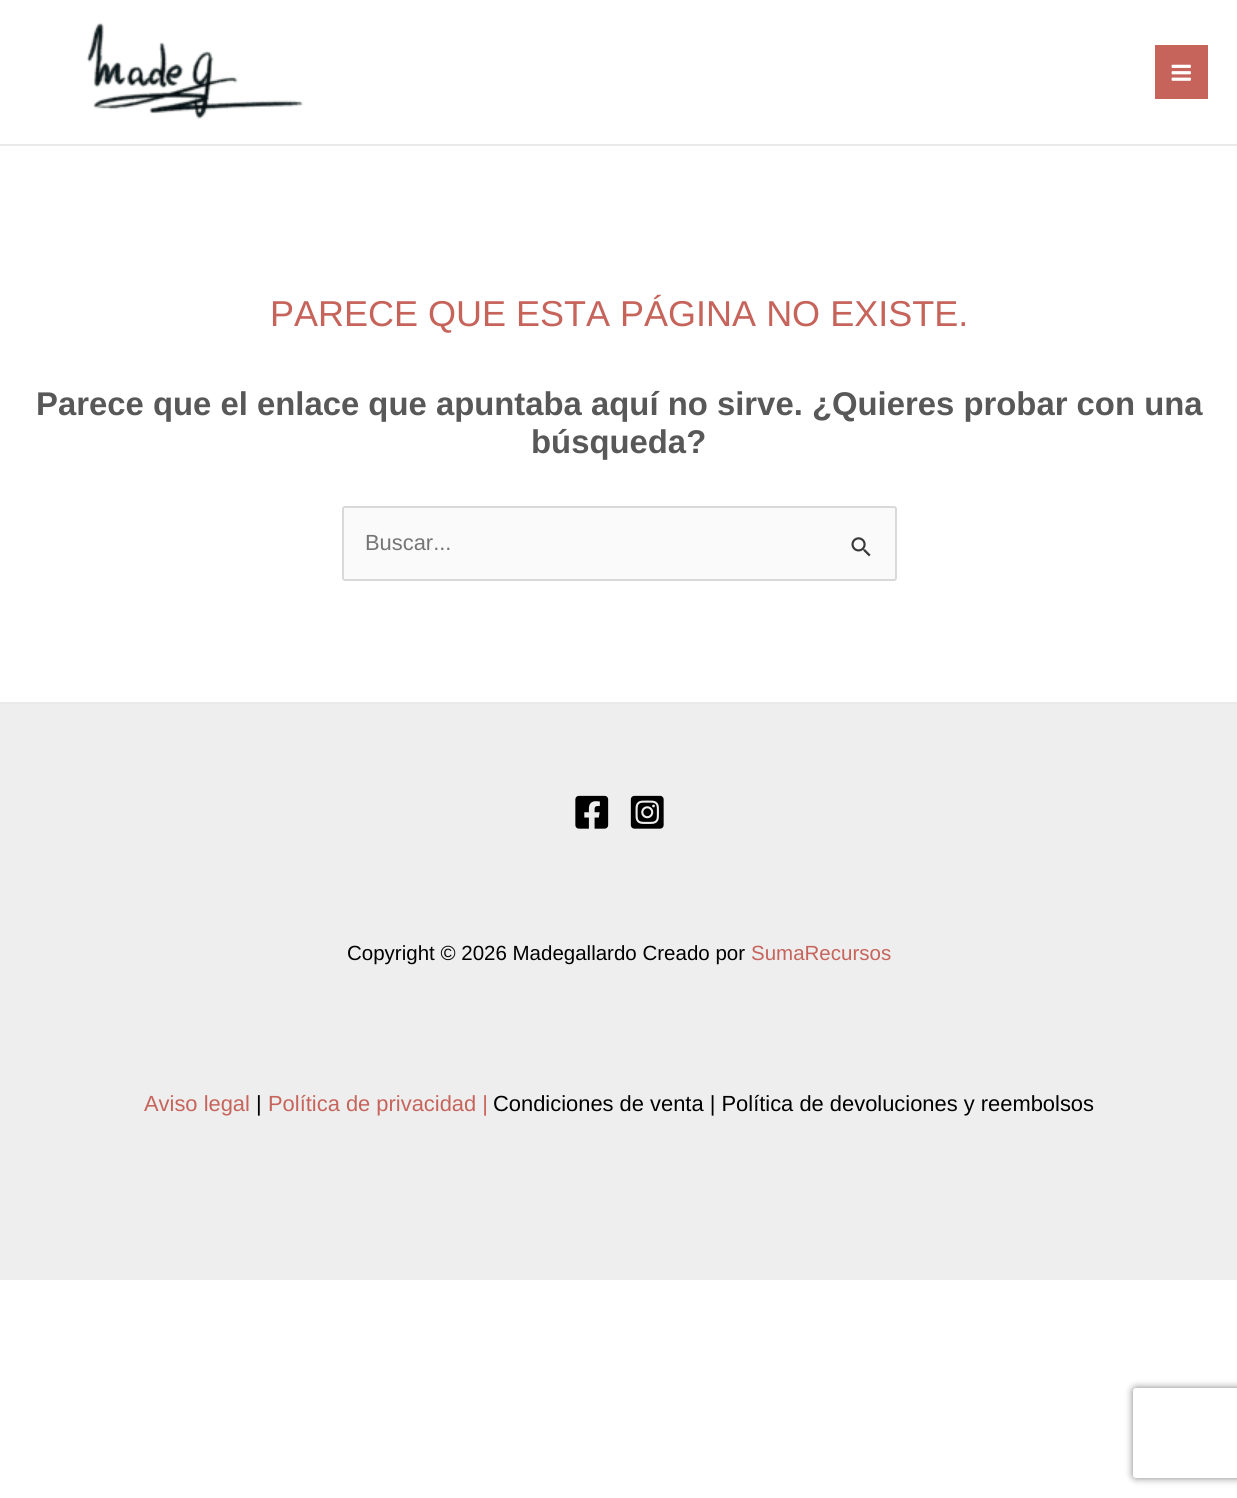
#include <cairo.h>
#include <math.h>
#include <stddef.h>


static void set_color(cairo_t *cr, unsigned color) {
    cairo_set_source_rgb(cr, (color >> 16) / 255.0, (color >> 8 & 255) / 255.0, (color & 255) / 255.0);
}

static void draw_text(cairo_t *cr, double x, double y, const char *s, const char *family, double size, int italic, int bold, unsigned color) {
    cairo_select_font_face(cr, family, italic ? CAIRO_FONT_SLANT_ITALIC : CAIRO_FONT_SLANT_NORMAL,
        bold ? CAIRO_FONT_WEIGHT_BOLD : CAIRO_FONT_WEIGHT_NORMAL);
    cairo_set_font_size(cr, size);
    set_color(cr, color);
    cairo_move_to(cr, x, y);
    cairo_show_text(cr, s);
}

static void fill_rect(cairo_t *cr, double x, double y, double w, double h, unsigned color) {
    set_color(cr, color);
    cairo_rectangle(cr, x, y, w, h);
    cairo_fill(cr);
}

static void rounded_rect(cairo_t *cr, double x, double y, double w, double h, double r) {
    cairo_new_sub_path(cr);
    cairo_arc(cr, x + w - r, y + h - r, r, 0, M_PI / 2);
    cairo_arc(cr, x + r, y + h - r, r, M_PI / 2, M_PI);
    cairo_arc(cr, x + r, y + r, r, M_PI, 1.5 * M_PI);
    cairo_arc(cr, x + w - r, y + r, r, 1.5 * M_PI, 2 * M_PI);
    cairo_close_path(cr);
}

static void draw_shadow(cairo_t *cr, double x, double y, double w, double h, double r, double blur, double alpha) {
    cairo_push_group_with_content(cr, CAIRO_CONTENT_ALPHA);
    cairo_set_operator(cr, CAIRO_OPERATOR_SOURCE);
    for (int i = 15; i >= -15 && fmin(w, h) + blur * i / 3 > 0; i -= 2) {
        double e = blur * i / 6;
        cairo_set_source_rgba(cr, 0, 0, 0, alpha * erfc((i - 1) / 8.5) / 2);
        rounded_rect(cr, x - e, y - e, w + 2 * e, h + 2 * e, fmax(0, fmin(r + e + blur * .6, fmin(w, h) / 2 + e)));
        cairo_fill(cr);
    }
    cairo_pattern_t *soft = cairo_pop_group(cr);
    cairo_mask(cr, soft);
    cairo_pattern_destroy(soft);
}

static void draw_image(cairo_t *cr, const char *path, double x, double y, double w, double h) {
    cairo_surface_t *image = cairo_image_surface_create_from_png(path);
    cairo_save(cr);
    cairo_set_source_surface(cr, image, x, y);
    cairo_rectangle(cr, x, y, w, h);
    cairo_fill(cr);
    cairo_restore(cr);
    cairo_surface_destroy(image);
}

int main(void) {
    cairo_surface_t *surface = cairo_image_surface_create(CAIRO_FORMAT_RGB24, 1237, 1498);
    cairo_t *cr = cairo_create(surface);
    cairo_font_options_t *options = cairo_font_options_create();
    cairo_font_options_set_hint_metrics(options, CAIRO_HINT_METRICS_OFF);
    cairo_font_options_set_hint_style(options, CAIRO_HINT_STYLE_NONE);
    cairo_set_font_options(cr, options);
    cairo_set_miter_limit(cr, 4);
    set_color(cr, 0xFFFFFF);
    cairo_paint(cr);
    fill_rect(cr, 0, 144, 1237, 2, 0xEAEAEA);
    draw_image(cr, "assets/img1.png", 86, 22, 218, 97);
    fill_rect(cr, 1155, 45, 53, 54, 0xC6645B);
    draw_image(cr, "assets/img2.png", 1171, 64, 20, 17);
    draw_text(cr, 270, 326, "PARECE QUE ESTA PÁGINA NO EXISTE.", "Liberation Sans", 36, 0, 0, 0xC6645B);
    draw_text(cr, 36, 415, "Parece que el enlace que apuntaba aquí no sirve. ¿Quieres probar con una", "Liberation Sans", 32.85, 0, 1, 0x585858);
    draw_text(cr, 531, 453, "búsqueda?", "Liberation Sans", 32.85, 0, 1, 0x585858);
    set_color(cr, 0xFAFAFA);
    rounded_rect(cr, 343, 507, 553, 73, 2);
    cairo_fill_preserve(cr);
    set_color(cr, 0xD9D9D9);
    cairo_stroke(cr);
    draw_text(cr, 365, 550, "Buscar...", "Liberation Sans", 21.9, 0, 0, 0x757575);
    draw_image(cr, "assets/img3.png", 851, 537, 20, 20);
    fill_rect(cr, 0, 704, 1237, 576, 0xEEEEEE);
    fill_rect(cr, 0, 702, 1237, 2, 0xEAEAEA);
    draw_image(cr, "assets/img4.png", 575, 795, 34, 34);
    draw_image(cr, "assets/img5.png", 630, 795, 34, 34);
    draw_text(cr, 347, 960, "Copyright © 2026 Madegallardo Creado por", "Liberation Sans", 20.5, 0, 0, 0x000000);
    draw_text(cr, 751, 960, "SumaRecursos", "Liberation Sans", 20.5, 0, 0, 0xC6645B);
    draw_text(cr, 144, 1111, "Aviso legal", "Liberation Sans", 21.9, 0, 0, 0xC6645B);
    draw_text(cr, 256, 1111, "|", "Liberation Sans", 21.9, 0, 0, 0x000000);
    draw_text(cr, 268, 1111, "Política de privacidad |", "Liberation Sans", 21.9, 0, 0, 0xC6645B);
    draw_text(cr, 493, 1111, "Condiciones de venta | Política de devoluciones y reembolsos", "Liberation Sans", 21.9, 0, 0, 0x000000);
    cairo_save(cr);
    cairo_set_fill_rule(cr, CAIRO_FILL_RULE_EVEN_ODD);
    cairo_new_path(cr);
    cairo_move_to(cr, 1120, 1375);
    cairo_line_to(cr, 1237, 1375);
    cairo_line_to(cr, 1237, 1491);
    cairo_line_to(cr, 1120, 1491);
    cairo_close_path(cr);
    cairo_move_to(cr, 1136, 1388);
    cairo_line_to(cr, 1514, 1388);
    cairo_curve_to(cr, 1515.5, 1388, 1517, 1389.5, 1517, 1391);
    cairo_line_to(cr, 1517, 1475);
    cairo_curve_to(cr, 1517, 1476.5, 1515.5, 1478, 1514, 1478);
    cairo_line_to(cr, 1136, 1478);
    cairo_curve_to(cr, 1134.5, 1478, 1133, 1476.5, 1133, 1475);
    cairo_line_to(cr, 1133, 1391);
    cairo_curve_to(cr, 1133, 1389.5, 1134.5, 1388, 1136, 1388);
    cairo_close_path(cr);
    cairo_clip(cr);
    set_color(cr, 0x808080);
    draw_shadow(cr, 1133, 1388, 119, 90, 3, 4, 1);
    cairo_restore(cr);
    cairo_surface_write_to_png(surface, "output.png");
    cairo_font_options_destroy(options);
    cairo_destroy(cr);
    cairo_surface_destroy(surface);
    return 0;
}
